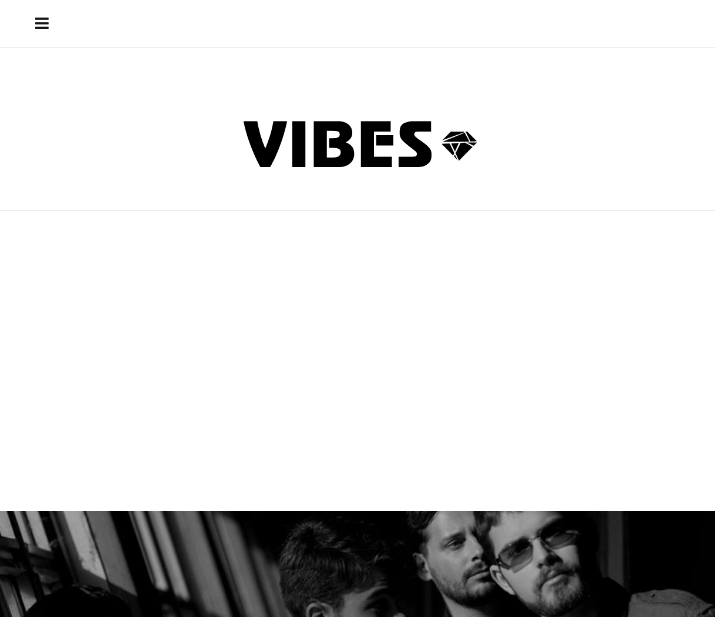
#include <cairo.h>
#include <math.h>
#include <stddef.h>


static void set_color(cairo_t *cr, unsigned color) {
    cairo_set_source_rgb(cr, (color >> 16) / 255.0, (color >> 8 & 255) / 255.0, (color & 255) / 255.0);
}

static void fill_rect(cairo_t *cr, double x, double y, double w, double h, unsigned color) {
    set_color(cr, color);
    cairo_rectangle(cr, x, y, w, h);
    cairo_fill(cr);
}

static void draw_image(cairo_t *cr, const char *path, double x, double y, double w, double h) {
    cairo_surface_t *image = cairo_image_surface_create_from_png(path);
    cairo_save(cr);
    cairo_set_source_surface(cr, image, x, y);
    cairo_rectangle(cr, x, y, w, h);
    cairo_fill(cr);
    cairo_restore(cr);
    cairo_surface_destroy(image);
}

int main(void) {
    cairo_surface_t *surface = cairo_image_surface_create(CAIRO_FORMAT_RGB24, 715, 617);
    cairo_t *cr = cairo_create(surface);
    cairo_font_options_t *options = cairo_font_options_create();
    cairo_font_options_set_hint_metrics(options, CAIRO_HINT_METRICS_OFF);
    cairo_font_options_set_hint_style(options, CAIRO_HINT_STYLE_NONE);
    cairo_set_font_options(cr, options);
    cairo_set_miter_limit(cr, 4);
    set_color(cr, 0xFFFFFF);
    cairo_paint(cr);
    fill_rect(cr, 0, 210, 715, 1, 0xEBEBEB);
    fill_rect(cr, 0, 47, 715, 1, 0xEFEFEF);
    draw_image(cr, "assets/img1.png", 35, 17, 14, 12);
    draw_image(cr, "assets/img2.png", 243, 121, 234, 46);
    draw_image(cr, "assets/img3.png", 0, 511, 715, 106);
    cairo_surface_write_to_png(surface, "output.png");
    cairo_font_options_destroy(options);
    cairo_destroy(cr);
    cairo_surface_destroy(surface);
    return 0;
}
